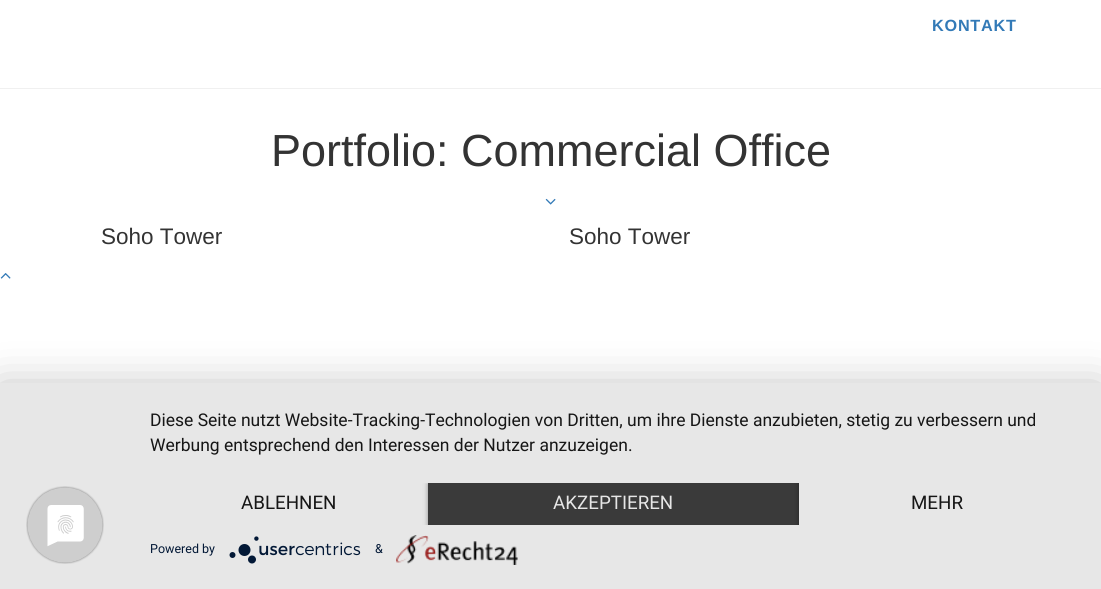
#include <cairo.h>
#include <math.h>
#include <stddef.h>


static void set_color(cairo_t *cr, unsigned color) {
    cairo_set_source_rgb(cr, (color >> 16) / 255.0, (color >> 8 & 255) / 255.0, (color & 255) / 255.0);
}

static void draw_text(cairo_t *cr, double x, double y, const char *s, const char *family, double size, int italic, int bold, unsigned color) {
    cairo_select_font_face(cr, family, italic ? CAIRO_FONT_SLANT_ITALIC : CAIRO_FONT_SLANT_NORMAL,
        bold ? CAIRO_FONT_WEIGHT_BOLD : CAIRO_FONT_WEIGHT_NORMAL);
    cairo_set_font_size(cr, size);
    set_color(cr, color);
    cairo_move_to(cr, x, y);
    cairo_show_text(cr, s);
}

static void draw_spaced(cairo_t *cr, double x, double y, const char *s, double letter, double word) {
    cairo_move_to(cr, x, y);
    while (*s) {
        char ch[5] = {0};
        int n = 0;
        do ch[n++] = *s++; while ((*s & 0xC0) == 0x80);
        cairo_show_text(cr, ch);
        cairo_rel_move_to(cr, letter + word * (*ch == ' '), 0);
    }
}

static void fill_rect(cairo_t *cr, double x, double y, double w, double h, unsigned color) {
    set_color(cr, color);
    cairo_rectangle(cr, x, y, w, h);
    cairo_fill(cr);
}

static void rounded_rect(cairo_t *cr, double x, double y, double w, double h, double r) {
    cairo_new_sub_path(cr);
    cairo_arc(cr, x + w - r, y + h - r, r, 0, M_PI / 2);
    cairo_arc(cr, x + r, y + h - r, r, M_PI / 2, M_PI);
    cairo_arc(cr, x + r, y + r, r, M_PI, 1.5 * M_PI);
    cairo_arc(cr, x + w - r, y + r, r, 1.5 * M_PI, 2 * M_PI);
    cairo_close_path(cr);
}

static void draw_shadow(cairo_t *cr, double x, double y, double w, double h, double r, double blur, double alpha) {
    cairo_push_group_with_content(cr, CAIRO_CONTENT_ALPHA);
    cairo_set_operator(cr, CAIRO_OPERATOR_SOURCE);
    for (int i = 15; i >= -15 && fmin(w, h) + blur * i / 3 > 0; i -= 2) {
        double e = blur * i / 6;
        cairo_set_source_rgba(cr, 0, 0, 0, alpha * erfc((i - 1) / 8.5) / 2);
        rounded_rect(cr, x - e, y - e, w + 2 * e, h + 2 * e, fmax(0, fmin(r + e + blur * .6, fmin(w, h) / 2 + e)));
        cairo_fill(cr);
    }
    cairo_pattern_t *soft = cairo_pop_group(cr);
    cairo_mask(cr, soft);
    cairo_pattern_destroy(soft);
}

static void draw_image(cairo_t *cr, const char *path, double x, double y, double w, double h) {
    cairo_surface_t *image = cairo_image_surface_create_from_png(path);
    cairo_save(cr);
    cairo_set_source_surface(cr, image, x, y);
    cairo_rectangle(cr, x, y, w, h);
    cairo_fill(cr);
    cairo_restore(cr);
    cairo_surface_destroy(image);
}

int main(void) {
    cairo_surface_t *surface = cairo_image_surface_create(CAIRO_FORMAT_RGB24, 1101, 589);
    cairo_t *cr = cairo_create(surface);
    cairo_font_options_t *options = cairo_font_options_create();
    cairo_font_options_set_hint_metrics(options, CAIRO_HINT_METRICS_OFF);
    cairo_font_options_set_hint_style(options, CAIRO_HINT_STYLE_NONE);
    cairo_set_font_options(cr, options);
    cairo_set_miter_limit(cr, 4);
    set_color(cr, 0xFFFFFF);
    cairo_paint(cr);
    fill_rect(cr, 0, 88, 1101, 1, 0xF0F0F0);
    cairo_select_font_face(cr, "Liberation Sans", CAIRO_FONT_SLANT_NORMAL, CAIRO_FONT_WEIGHT_BOLD);
    cairo_set_font_size(cr, 16.25);
    set_color(cr, 0x337AB7);
    draw_spaced(cr, 932, 31, "KONTAKT", 0.75, 0);
    draw_text(cr, 271, 166, "Portfolio: Commercial Office", "Liberation Sans", 45, 0, 0, 0x333333);
    draw_image(cr, "assets/img1.png", 545, 198, 11, 7);
    draw_text(cr, 101, 244, "Soho Tower", "Liberation Sans", 22.5, 0, 0, 0x333333);
    draw_text(cr, 569, 244, "Soho Tower", "Liberation Sans", 22.5, 0, 0, 0x333333);
    draw_image(cr, "assets/img2.png", 0, 273, 11, 6);
    set_color(cr, 0x000000);
    draw_shadow(cr, 0, 390, 1101, 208, 0, 22.5, 0.3);
    fill_rect(cr, 0, 383, 1101, 206, 0xE7E7E7);
    draw_image(cr, "assets/img3.png", 26, 486, 78, 78);
    draw_text(cr, 150, 426, "Diese Seite nutzt Website-Tracking-Technologien von Dritten, um ihre Dienste anzubieten, stetig zu verbessern und", "Roboto", 17.5, 0, 0, 0x161616);
    draw_text(cr, 150, 451, "Werbung entsprechend den Interessen der Nutzer anzuzeigen.", "Roboto", 17.5, 0, 0, 0x161616);
    draw_text(cr, 241, 509, "ABLEHNEN", "Roboto", 18.75, 0, 0, 0x161616);
    cairo_save(cr);
    cairo_rectangle(cr, 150, 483, 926, 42);
    cairo_clip(cr);
    set_color(cr, 0x000000);
    draw_shadow(cr, 428, 484, 371, 42, 0, 2.5, 0.4);
    cairo_restore(cr);
    fill_rect(cr, 428, 483, 371, 42, 0x3A3A3A);
    draw_text(cr, 553, 509, "AKZEPTIEREN", "Roboto", 18.75, 0, 0, 0xE6E6E6);
    cairo_save(cr);
    cairo_rectangle(cr, 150, 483, 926, 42);
    cairo_clip(cr);
    set_color(cr, 0x000000);
    draw_shadow(cr, 799, 484, 277, 42, 0, 2.5, 0.4);
    cairo_restore(cr);
    fill_rect(cr, 799, 483, 277, 42, 0xE7E7E7);
    draw_text(cr, 911, 509, "MEHR", "Roboto", 18.75, 0, 0, 0x161616);
    draw_text(cr, 150, 553, "Powered by", "Roboto", 12.5, 0, 0, 0x021836);
    draw_image(cr, "assets/img4.png", 229, 536, 132, 28);
    draw_text(cr, 375, 553, "&", "Roboto", 12.5, 0, 0, 0x021836);
    draw_image(cr, "assets/img5.png", 396, 535, 122, 30);
    cairo_surface_write_to_png(surface, "output.png");
    cairo_font_options_destroy(options);
    cairo_destroy(cr);
    cairo_surface_destroy(surface);
    return 0;
}
